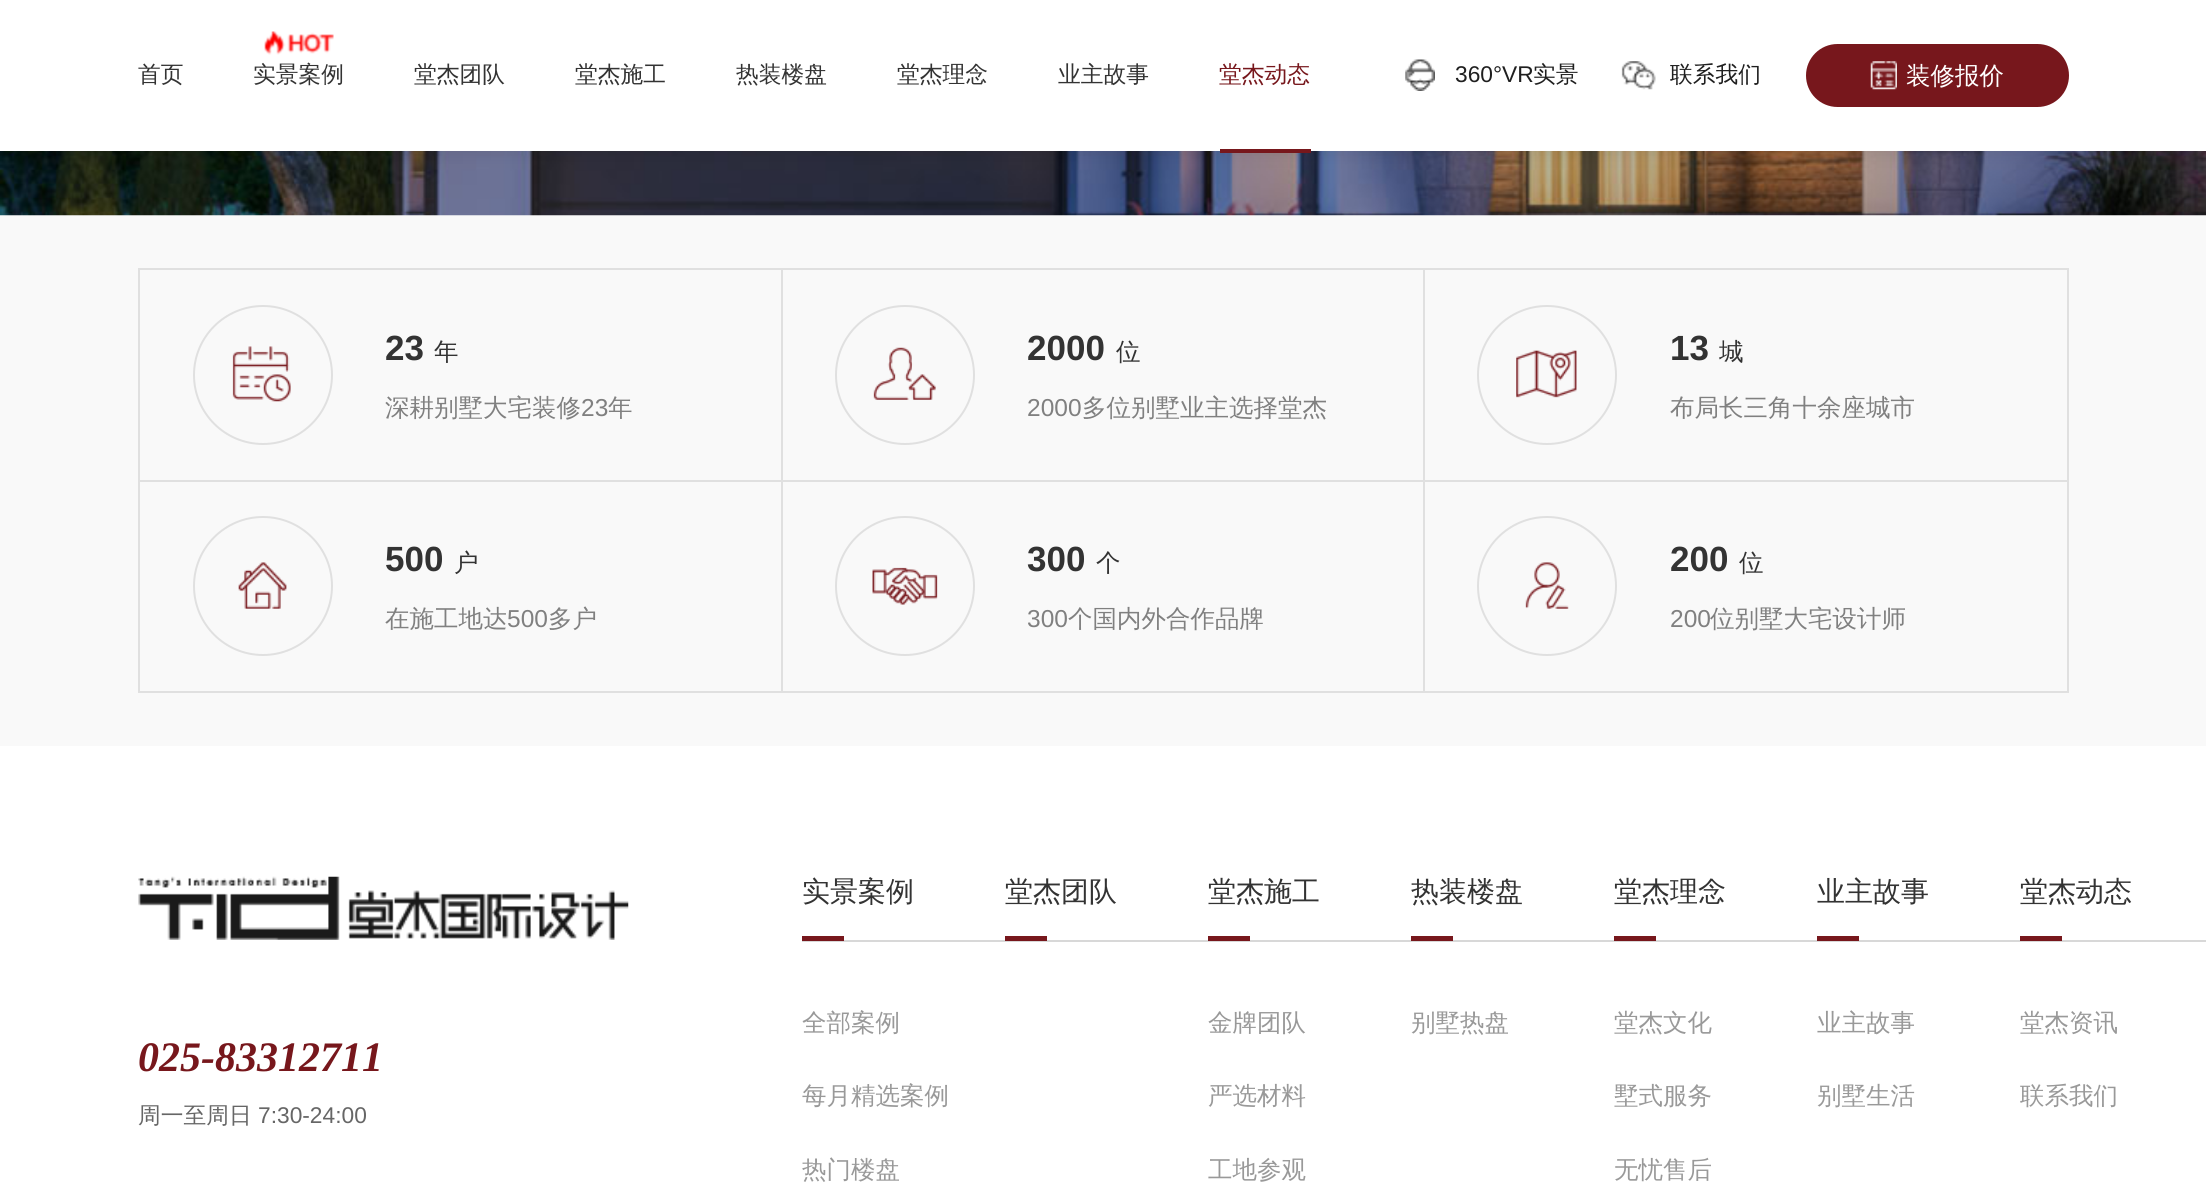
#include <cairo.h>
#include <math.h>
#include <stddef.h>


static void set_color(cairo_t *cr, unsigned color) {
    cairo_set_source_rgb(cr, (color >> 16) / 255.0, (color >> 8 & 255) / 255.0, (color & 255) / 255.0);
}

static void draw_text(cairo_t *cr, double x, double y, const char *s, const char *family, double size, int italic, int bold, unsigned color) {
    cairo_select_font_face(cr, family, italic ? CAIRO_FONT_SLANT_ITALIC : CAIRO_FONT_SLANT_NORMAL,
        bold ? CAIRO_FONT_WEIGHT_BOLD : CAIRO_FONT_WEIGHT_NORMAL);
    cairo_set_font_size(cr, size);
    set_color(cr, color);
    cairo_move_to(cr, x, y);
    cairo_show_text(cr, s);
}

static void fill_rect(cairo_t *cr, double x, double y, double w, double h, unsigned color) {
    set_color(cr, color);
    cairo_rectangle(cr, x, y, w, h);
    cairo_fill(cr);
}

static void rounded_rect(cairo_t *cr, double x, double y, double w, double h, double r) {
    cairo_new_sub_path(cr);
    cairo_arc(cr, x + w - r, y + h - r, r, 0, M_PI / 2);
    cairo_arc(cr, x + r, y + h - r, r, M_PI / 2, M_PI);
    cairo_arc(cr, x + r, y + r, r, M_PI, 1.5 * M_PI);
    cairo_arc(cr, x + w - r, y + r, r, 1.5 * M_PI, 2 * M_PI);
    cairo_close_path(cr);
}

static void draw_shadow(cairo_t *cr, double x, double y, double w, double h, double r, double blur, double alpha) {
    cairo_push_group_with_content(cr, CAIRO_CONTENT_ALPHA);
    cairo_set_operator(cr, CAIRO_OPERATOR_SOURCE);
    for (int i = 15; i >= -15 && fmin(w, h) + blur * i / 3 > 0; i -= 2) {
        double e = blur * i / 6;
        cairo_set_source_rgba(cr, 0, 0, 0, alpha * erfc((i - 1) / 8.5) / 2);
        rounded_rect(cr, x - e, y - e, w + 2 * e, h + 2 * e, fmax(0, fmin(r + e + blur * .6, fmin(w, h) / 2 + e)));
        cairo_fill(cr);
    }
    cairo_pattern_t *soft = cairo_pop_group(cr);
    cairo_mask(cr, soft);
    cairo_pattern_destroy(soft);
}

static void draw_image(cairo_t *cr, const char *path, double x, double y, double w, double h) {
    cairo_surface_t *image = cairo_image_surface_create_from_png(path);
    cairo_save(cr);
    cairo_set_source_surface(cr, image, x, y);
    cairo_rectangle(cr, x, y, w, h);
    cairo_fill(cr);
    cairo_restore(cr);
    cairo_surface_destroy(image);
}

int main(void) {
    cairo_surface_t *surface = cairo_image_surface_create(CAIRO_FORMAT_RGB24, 2206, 1191);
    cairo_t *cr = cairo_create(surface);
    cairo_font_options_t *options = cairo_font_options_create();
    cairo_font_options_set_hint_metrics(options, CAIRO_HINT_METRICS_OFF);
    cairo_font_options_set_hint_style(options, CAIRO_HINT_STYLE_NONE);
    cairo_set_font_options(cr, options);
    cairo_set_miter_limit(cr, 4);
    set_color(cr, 0xF9F9F9);
    cairo_paint(cr);
    draw_image(cr, "assets/img5.png", 0, 151, 2206, 65);
    set_color(cr, 0x000000);
    draw_shadow(cr, 0, -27, 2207, 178, 0, 9, 0.1);
    fill_rect(cr, 0, 0, 2206, 151, 0xFFFFFF);
    draw_text(cr, 138, 82, "首页", "WenQuanYi Zen Hei Medium", 22.75, 0, 0, 0x333333);
    draw_image(cr, "assets/img1.png", 264, 31, 70, 24);
    draw_text(cr, 253, 82, "实景案例", "WenQuanYi Zen Hei Medium", 22.75, 0, 0, 0x333333);
    draw_text(cr, 414, 82, "堂杰团队", "WenQuanYi Zen Hei Medium", 22.75, 0, 0, 0x333333);
    draw_text(cr, 575, 82, "堂杰施工", "WenQuanYi Zen Hei Medium", 22.75, 0, 0, 0x333333);
    draw_text(cr, 736, 82, "热装楼盘", "WenQuanYi Zen Hei Medium", 22.75, 0, 0, 0x333333);
    draw_text(cr, 897, 82, "堂杰理念", "WenQuanYi Zen Hei Medium", 22.75, 0, 0, 0x333333);
    draw_text(cr, 1058, 82, "业主故事", "WenQuanYi Zen Hei Medium", 22.75, 0, 0, 0x333333);
    draw_text(cr, 1219, 82, "堂杰动态", "WenQuanYi Zen Hei Medium", 22.75, 0, 0, 0x77171C);
    fill_rect(cr, 1220, 149, 91, 4, 0x77171C);
    draw_image(cr, "assets/img2.png", 1405, 59, 30, 32);
    draw_text(cr, 1455, 82, "360°VR", "Liberation Sans", 22.75, 0, 0, 0x1F1F1F);
    draw_text(cr, 1533, 82, "实景", "WenQuanYi Zen Hei Medium", 22.75, 0, 0, 0x1F1F1F);
    draw_image(cr, "assets/img3.png", 1621, 61, 35, 29);
    draw_text(cr, 1670, 82, "联系我们", "WenQuanYi Zen Hei Medium", 22.75, 0, 0, 0x1F1F1F);
    set_color(cr, 0x77171C);
    rounded_rect(cr, 1806, 44, 263, 63, 31.5);
    cairo_fill(cr);
    draw_image(cr, "assets/img4.png", 1870, 61, 27, 29);
    draw_text(cr, 1906, 84, "装修报价", "WenQuanYi Zen Hei Medium", 24.5, 0, 0, 0xFFFFFF);
    cairo_rectangle(cr, 139, 269, 1929, 423);
    set_color(cr, 0xE0E0E0);
    cairo_stroke(cr);
    fill_rect(cr, 781, 270, 2, 211, 0xE0E0E0);
    fill_rect(cr, 140, 480, 642, 2, 0xE0E0E0);
    cairo_arc(cr, 263, 375, 69, 0, 2 * M_PI);
    cairo_stroke(cr);
    draw_image(cr, "assets/img6.png", 232, 346, 59, 56);
    draw_text(cr, 385, 360, "23", "Liberation Sans", 35, 0, 1, 0x333333);
    draw_text(cr, 434, 360, "年", "WenQuanYi Zen Hei Medium", 24.5, 0, 0, 0x333333);
    draw_text(cr, 385, 416, "深耕别墅大宅装修", "WenQuanYi Zen Hei Medium", 24.5, 0, 0, 0x808080);
    draw_text(cr, 581, 416, "23", "Liberation Sans", 24.5, 0, 0, 0x808080);
    draw_text(cr, 608, 416, "年", "WenQuanYi Zen Hei Medium", 24.5, 0, 0, 0x808080);
    fill_rect(cr, 1423, 270, 2, 211, 0xE0E0E0);
    fill_rect(cr, 782, 480, 1285, 2, 0xE0E0E0);
    cairo_new_path(cr);
    cairo_arc(cr, 905, 375, 69, 0, 2 * M_PI);
    cairo_stroke(cr);
    draw_image(cr, "assets/img7.png", 873, 347, 63, 53);
    draw_text(cr, 1027, 360, "2000", "Liberation Sans", 35, 0, 1, 0x333333);
    draw_text(cr, 1116, 360, "位", "WenQuanYi Zen Hei Medium", 24.5, 0, 0, 0x333333);
    draw_text(cr, 1027, 416, "2000", "Liberation Sans", 24.5, 0, 0, 0x808080);
    draw_text(cr, 1082, 416, "多位别墅业主选择堂杰", "WenQuanYi Zen Hei Medium", 24.5, 0, 0, 0x808080);
    cairo_new_path(cr);
    cairo_arc(cr, 1547, 375, 69, 0, 2 * M_PI);
    set_color(cr, 0xE0E0E0);
    cairo_stroke(cr);
    draw_image(cr, "assets/img8.png", 1516, 350, 61, 48);
    draw_text(cr, 1670, 360, "13", "Liberation Sans", 35, 0, 1, 0x333333);
    draw_text(cr, 1719, 360, "城", "WenQuanYi Zen Hei Medium", 24.5, 0, 0, 0x333333);
    draw_text(cr, 1670, 416, "布局长三角十余座城市", "WenQuanYi Zen Hei Medium", 24.5, 0, 0, 0x808080);
    fill_rect(cr, 781, 481, 2, 210, 0xE0E0E0);
    cairo_new_path(cr);
    cairo_arc(cr, 263, 586, 69, 0, 2 * M_PI);
    cairo_stroke(cr);
    draw_image(cr, "assets/img9.png", 238, 562, 49, 47);
    draw_text(cr, 385, 571, "500", "Liberation Sans", 35, 0, 1, 0x333333);
    draw_text(cr, 454, 571, "户", "WenQuanYi Zen Hei Medium", 24.5, 0, 0, 0x333333);
    draw_text(cr, 385, 627, "在施工地达", "WenQuanYi Zen Hei Medium", 24.5, 0, 0, 0x808080);
    draw_text(cr, 507, 627, "500", "Liberation Sans", 24.5, 0, 0, 0x808080);
    draw_text(cr, 548, 627, "多户", "WenQuanYi Zen Hei Medium", 24.5, 0, 0, 0x808080);
    fill_rect(cr, 1423, 481, 2, 210, 0xE0E0E0);
    cairo_new_path(cr);
    cairo_arc(cr, 905, 586, 69, 0, 2 * M_PI);
    cairo_stroke(cr);
    draw_image(cr, "assets/img10.png", 872, 567, 66, 38);
    draw_text(cr, 1027, 571, "300", "Liberation Sans", 35, 0, 1, 0x333333);
    draw_text(cr, 1096, 571, "个", "WenQuanYi Zen Hei Medium", 24.5, 0, 0, 0x333333);
    draw_text(cr, 1027, 627, "300", "Liberation Sans", 24.5, 0, 0, 0x808080);
    draw_text(cr, 1068, 627, "个国内外合作品牌", "WenQuanYi Zen Hei Medium", 24.5, 0, 0, 0x808080);
    cairo_new_path(cr);
    cairo_arc(cr, 1547, 586, 69, 0, 2 * M_PI);
    set_color(cr, 0xE0E0E0);
    cairo_stroke(cr);
    draw_image(cr, "assets/img11.png", 1525, 562, 44, 47);
    draw_text(cr, 1670, 571, "200", "Liberation Sans", 35, 0, 1, 0x333333);
    draw_text(cr, 1739, 571, "位", "WenQuanYi Zen Hei Medium", 24.5, 0, 0, 0x333333);
    draw_text(cr, 1670, 627, "200", "Liberation Sans", 24.5, 0, 0, 0x808080);
    draw_text(cr, 1710, 627, "位别墅大宅设计师", "WenQuanYi Zen Hei Medium", 24.5, 0, 0, 0x808080);
    fill_rect(cr, 0, 746, 2206, 445, 0xFFFFFF);
    draw_image(cr, "assets/img12.png", 138, 876, 491, 64);
    draw_text(cr, 138, 1071, "025-83312711", "Liberation Serif", 42, 1, 1, 0x77171C);
    draw_text(cr, 138, 1123, "周一至周日", "WenQuanYi Zen Hei Medium", 22.75, 0, 0, 0x666666);
    draw_text(cr, 258, 1123, "7:30-24:00", "Liberation Sans", 22.75, 0, 0, 0x666666);
    fill_rect(cr, 802, 940, 1404, 2, 0xD8D8D8);
    draw_text(cr, 802, 901, "实景案例", "WenQuanYi Zen Hei Medium", 28, 0, 0, 0x333333);
    fill_rect(cr, 802, 936, 42, 5, 0x77171C);
    draw_text(cr, 802, 1031, "全部案例", "WenQuanYi Zen Hei Medium", 24.5, 0, 0, 0x999999);
    draw_text(cr, 802, 1104, "每月精选案例", "WenQuanYi Zen Hei Medium", 24.5, 0, 0, 0x999999);
    draw_text(cr, 802, 1178, "热门楼盘", "WenQuanYi Zen Hei Medium", 24.5, 0, 0, 0x999999);
    draw_text(cr, 1005, 901, "堂杰团队", "WenQuanYi Zen Hei Medium", 28, 0, 0, 0x333333);
    fill_rect(cr, 1005, 936, 42, 5, 0x77171C);
    draw_text(cr, 1208, 901, "堂杰施工", "WenQuanYi Zen Hei Medium", 28, 0, 0, 0x333333);
    fill_rect(cr, 1208, 936, 42, 5, 0x77171C);
    draw_text(cr, 1208, 1031, "金牌团队", "WenQuanYi Zen Hei Medium", 24.5, 0, 0, 0x999999);
    draw_text(cr, 1208, 1104, "严选材料", "WenQuanYi Zen Hei Medium", 24.5, 0, 0, 0x999999);
    draw_text(cr, 1208, 1178, "工地参观", "WenQuanYi Zen Hei Medium", 24.5, 0, 0, 0x999999);
    draw_text(cr, 1411, 901, "热装楼盘", "WenQuanYi Zen Hei Medium", 28, 0, 0, 0x333333);
    fill_rect(cr, 1411, 936, 42, 5, 0x77171C);
    draw_text(cr, 1411, 1031, "别墅热盘", "WenQuanYi Zen Hei Medium", 24.5, 0, 0, 0x999999);
    draw_text(cr, 1614, 901, "堂杰理念", "WenQuanYi Zen Hei Medium", 28, 0, 0, 0x333333);
    fill_rect(cr, 1614, 936, 42, 5, 0x77171C);
    draw_text(cr, 1614, 1031, "堂杰文化", "WenQuanYi Zen Hei Medium", 24.5, 0, 0, 0x999999);
    draw_text(cr, 1614, 1104, "墅式服务", "WenQuanYi Zen Hei Medium", 24.5, 0, 0, 0x999999);
    draw_text(cr, 1614, 1178, "无忧售后", "WenQuanYi Zen Hei Medium", 24.5, 0, 0, 0x999999);
    draw_text(cr, 1817, 901, "业主故事", "WenQuanYi Zen Hei Medium", 28, 0, 0, 0x333333);
    fill_rect(cr, 1817, 936, 42, 5, 0x77171C);
    draw_text(cr, 1817, 1031, "业主故事", "WenQuanYi Zen Hei Medium", 24.5, 0, 0, 0x999999);
    draw_text(cr, 1817, 1104, "别墅生活", "WenQuanYi Zen Hei Medium", 24.5, 0, 0, 0x999999);
    draw_text(cr, 2020, 901, "堂杰动态", "WenQuanYi Zen Hei Medium", 28, 0, 0, 0x333333);
    fill_rect(cr, 2020, 936, 42, 5, 0x77171C);
    draw_text(cr, 2020, 1031, "堂杰资讯", "WenQuanYi Zen Hei Medium", 24.5, 0, 0, 0x999999);
    draw_text(cr, 2020, 1104, "联系我们", "WenQuanYi Zen Hei Medium", 24.5, 0, 0, 0x999999);
    cairo_surface_write_to_png(surface, "output.png");
    cairo_font_options_destroy(options);
    cairo_destroy(cr);
    cairo_surface_destroy(surface);
    return 0;
}
